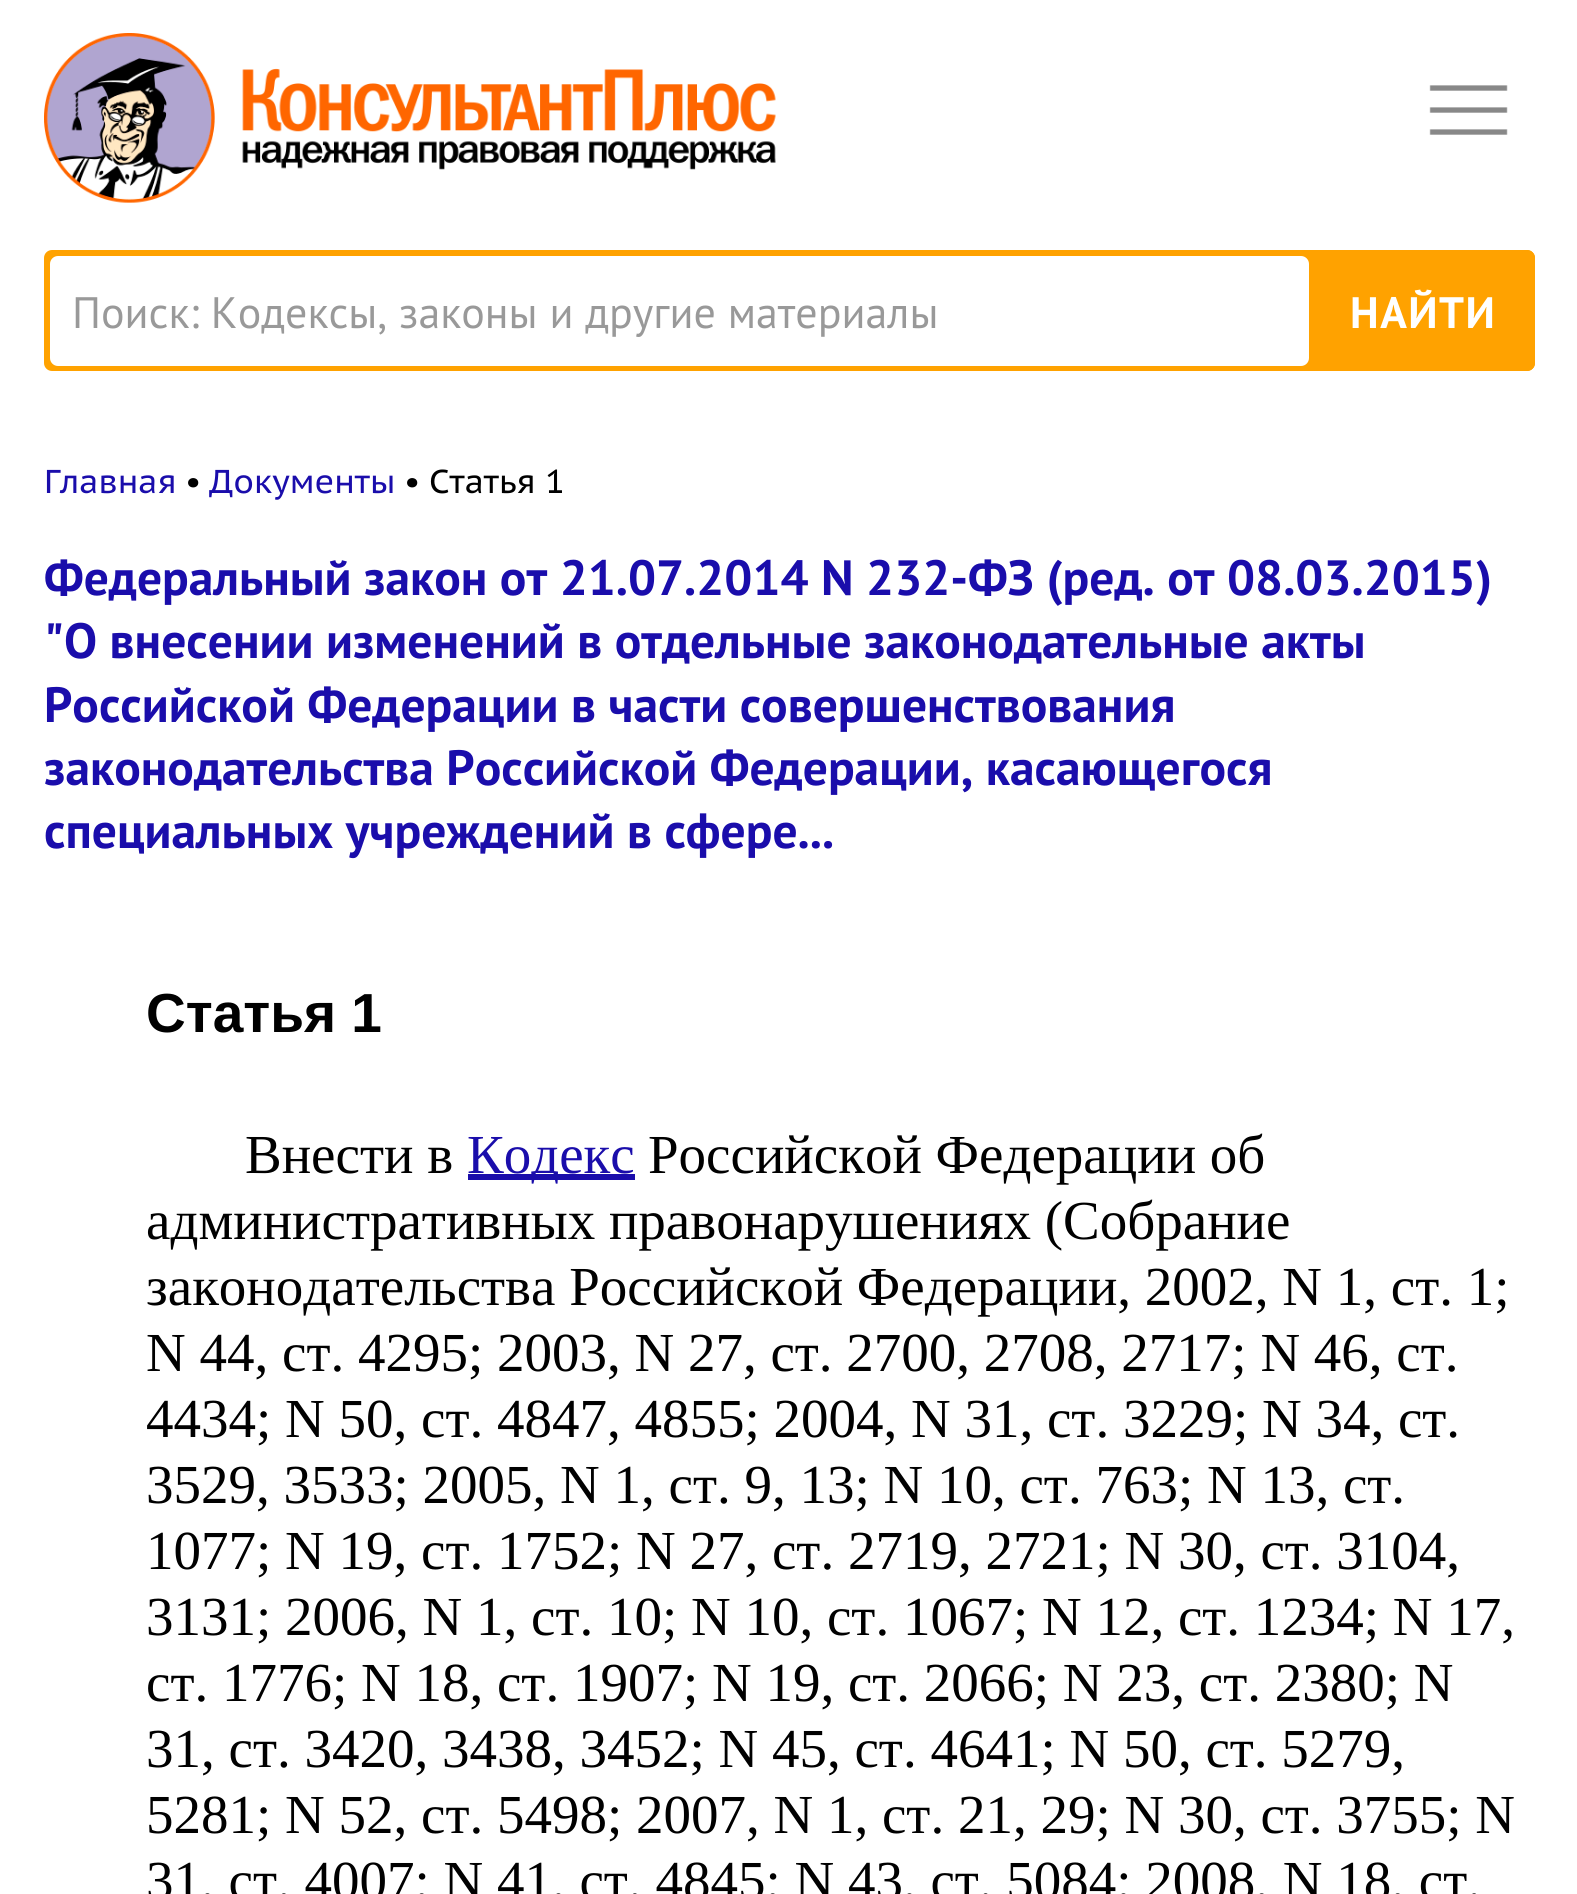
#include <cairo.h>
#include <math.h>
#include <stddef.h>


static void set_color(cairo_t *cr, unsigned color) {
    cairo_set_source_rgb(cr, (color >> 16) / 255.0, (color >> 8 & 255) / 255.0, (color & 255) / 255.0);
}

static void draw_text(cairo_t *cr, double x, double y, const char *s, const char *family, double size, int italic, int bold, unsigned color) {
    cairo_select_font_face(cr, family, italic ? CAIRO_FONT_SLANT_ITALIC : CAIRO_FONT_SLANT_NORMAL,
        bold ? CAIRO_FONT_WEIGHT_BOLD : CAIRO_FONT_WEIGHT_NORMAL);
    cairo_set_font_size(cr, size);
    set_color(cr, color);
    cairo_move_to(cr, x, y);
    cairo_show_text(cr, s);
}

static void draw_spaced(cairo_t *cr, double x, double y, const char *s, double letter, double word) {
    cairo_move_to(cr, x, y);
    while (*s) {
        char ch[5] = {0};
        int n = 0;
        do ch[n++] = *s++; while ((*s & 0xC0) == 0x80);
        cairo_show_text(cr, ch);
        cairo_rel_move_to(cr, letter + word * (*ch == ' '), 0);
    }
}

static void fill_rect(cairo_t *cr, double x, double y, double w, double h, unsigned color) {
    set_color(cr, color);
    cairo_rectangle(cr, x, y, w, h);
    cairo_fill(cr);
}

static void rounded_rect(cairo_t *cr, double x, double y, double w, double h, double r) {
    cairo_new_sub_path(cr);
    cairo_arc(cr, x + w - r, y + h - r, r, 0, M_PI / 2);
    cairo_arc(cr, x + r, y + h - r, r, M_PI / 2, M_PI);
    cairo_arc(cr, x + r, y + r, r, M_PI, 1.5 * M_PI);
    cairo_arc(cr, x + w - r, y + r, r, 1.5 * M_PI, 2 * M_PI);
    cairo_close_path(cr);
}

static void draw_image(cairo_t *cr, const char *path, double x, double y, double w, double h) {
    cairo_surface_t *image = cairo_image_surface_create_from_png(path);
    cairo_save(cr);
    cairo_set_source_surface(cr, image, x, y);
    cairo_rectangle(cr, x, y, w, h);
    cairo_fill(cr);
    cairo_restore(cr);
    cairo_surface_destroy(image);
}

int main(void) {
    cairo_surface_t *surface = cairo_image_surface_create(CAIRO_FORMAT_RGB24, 1577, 1894);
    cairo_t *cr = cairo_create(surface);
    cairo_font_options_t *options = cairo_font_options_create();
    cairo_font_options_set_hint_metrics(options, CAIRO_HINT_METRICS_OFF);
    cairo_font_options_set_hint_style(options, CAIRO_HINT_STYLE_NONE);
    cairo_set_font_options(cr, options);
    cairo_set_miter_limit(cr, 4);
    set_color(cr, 0xFFFFFF);
    cairo_paint(cr);
    draw_image(cr, "assets/img1.png", 44, 33, 732, 170);
    draw_image(cr, "assets/img2.png", 1429, 85, 79, 50);
    set_color(cr, 0xFFA200);
    rounded_rect(cr, 44, 250, 1491, 121, 8);
    cairo_fill(cr);
    set_color(cr, 0xFFFFFF);
    rounded_rect(cr, 50, 256, 1259, 110, 8);
    cairo_fill(cr);
    draw_text(cr, 72, 328, "Поиск: Кодексы, законы и другие материалы", "PT Sans", 44, 0, 0, 0x999999);
    set_color(cr, 0xFFA200);
    rounded_rect(cr, 1309, 250, 226, 121, 8);
    cairo_fill(cr);
    cairo_select_font_face(cr, "PT Sans", CAIRO_FONT_SLANT_NORMAL, CAIRO_FONT_WEIGHT_BOLD);
    set_color(cr, 0xFFFFFF);
    draw_spaced(cr, 1350, 328, "НАЙТИ", 1.5, 0);
    draw_text(cr, 44, 493, "Главная", "PT Sans Caption", 33, 0, 0, 0x1A0DAB);
    draw_text(cr, 185, 493, "•", "PT Sans Caption", 33, 0, 0, 0x000000);
    draw_text(cr, 209, 493, "Документы", "PT Sans Caption", 33, 0, 0, 0x1A0DAB);
    draw_text(cr, 404, 493, "•", "PT Sans Caption", 33, 0, 0, 0x000000);
    draw_text(cr, 429, 493, "Статья 1", "PT Sans Caption", 33, 0, 0, 0x000000);
    draw_text(cr, 44, 595, "Федеральный закон от 21.07.2014 N 232-ФЗ (ред. от 08.03.2015)", "PT Sans", 49.5, 0, 1, 0x1A0DAB);
    draw_text(cr, 44, 658, "\"О внесении изменений в отдельные законодательные акты", "PT Sans", 49.5, 0, 1, 0x1A0DAB);
    draw_text(cr, 44, 722, "Российской Федерации в части совершенствования", "PT Sans", 49.5, 0, 1, 0x1A0DAB);
    draw_text(cr, 44, 785, "законодательства Российской Федерации, касающегося", "PT Sans", 49.5, 0, 1, 0x1A0DAB);
    draw_text(cr, 44, 848, "специальных учреждений в сфере...", "PT Sans", 49.5, 0, 1, 0x1A0DAB);
    draw_text(cr, 146, 1032, "Статья 1", "Liberation Sans", 55, 0, 1, 0x000000);
    draw_text(cr, 245, 1173, "Внести в", "Liberation Serif", 55, 0, 0, 0x000000);
    fill_rect(cr, 468, 1174, 167, 6, 0x1A0DAB);
    draw_text(cr, 467, 1173, "Кодекс", "Liberation Serif", 55, 0, 0, 0x1A0DAB);
    draw_text(cr, 648, 1173, "Российской Федерации об", "Liberation Serif", 55, 0, 0, 0x000000);
    draw_text(cr, 146, 1239, "административных правонарушениях (Собрание", "Liberation Serif", 55, 0, 0, 0x000000);
    draw_text(cr, 146, 1305, "законодательства Российской Федерации, 2002, N 1, ст. 1;", "Liberation Serif", 55, 0, 0, 0x000000);
    draw_text(cr, 146, 1371, "N 44, ст. 4295; 2003, N 27, ст. 2700, 2708, 2717; N 46, ст.", "Liberation Serif", 55, 0, 0, 0x000000);
    draw_text(cr, 146, 1437, "4434; N 50, ст. 4847, 4855; 2004, N 31, ст. 3229; N 34, ст.", "Liberation Serif", 55, 0, 0, 0x000000);
    draw_text(cr, 146, 1503, "3529, 3533; 2005, N 1, ст. 9, 13; N 10, ст. 763; N 13, ст.", "Liberation Serif", 55, 0, 0, 0x000000);
    draw_text(cr, 146, 1569, "1077; N 19, ст. 1752; N 27, ст. 2719, 2721; N 30, ст. 3104,", "Liberation Serif", 55, 0, 0, 0x000000);
    draw_text(cr, 146, 1635, "3131; 2006, N 1, ст. 10; N 10, ст. 1067; N 12, ст. 1234; N 17,", "Liberation Serif", 55, 0, 0, 0x000000);
    draw_text(cr, 146, 1701, "ст. 1776; N 18, ст. 1907; N 19, ст. 2066; N 23, ст. 2380; N", "Liberation Serif", 55, 0, 0, 0x000000);
    draw_text(cr, 146, 1767, "31, ст. 3420, 3438, 3452; N 45, ст. 4641; N 50, ст. 5279,", "Liberation Serif", 55, 0, 0, 0x000000);
    draw_text(cr, 146, 1833, "5281; N 52, ст. 5498; 2007, N 1, ст. 21, 29; N 30, ст. 3755; N", "Liberation Serif", 55, 0, 0, 0x000000);
    draw_text(cr, 146, 1899, "31, ст. 4007; N 41, ст. 4845; N 43, ст. 5084; 2008, N 18, ст.", "Liberation Serif", 55, 0, 0, 0x000000);
    cairo_surface_write_to_png(surface, "output.png");
    cairo_font_options_destroy(options);
    cairo_destroy(cr);
    cairo_surface_destroy(surface);
    return 0;
}
